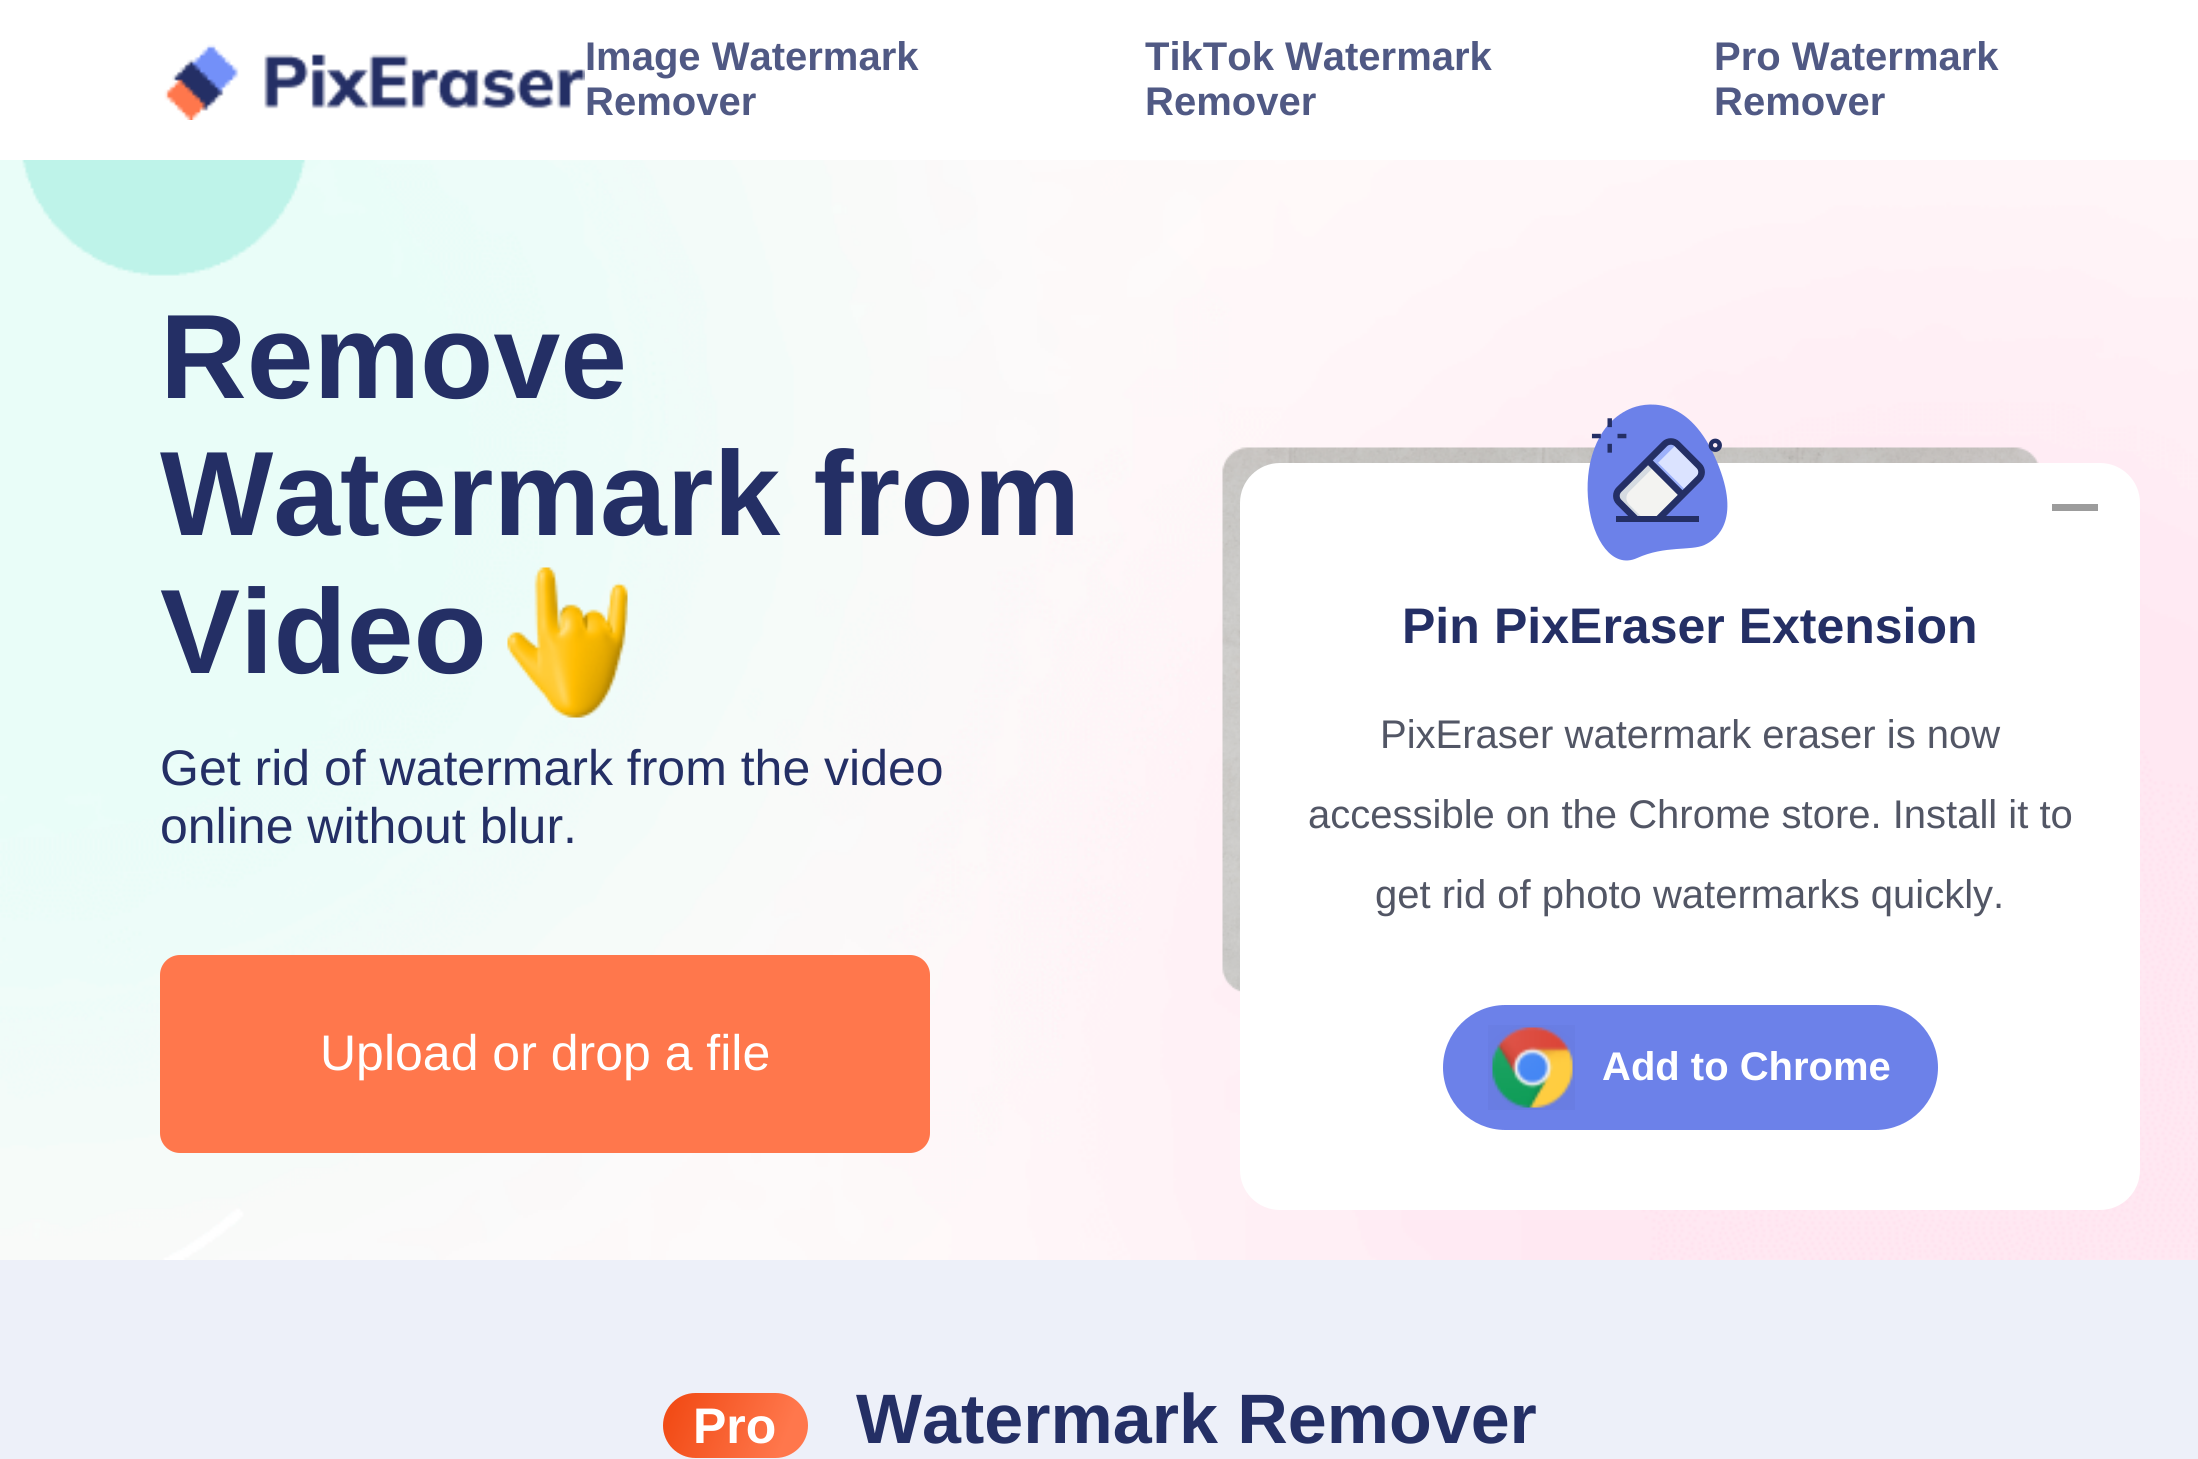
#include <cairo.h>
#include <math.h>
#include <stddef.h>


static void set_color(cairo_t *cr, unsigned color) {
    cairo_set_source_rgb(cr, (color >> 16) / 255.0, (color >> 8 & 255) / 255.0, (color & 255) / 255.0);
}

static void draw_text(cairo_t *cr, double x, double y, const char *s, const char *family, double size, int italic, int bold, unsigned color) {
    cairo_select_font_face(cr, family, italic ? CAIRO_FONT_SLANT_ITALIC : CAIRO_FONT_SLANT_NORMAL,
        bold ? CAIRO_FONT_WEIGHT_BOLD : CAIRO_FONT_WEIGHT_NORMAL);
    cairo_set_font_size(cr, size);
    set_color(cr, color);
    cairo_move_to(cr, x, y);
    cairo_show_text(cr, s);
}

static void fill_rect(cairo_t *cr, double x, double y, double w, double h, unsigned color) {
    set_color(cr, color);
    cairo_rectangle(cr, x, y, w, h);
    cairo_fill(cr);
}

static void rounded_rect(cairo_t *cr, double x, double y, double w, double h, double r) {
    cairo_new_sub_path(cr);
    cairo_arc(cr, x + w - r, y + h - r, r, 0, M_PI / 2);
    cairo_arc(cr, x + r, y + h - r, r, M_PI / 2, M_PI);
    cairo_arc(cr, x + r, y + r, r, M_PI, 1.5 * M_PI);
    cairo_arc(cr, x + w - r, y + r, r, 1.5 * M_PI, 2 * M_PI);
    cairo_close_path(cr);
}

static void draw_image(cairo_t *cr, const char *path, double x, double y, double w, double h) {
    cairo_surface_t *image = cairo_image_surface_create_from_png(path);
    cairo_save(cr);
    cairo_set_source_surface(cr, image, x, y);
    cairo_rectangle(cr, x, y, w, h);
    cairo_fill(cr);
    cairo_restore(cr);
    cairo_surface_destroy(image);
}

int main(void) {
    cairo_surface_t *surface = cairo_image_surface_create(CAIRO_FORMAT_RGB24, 2198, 1459);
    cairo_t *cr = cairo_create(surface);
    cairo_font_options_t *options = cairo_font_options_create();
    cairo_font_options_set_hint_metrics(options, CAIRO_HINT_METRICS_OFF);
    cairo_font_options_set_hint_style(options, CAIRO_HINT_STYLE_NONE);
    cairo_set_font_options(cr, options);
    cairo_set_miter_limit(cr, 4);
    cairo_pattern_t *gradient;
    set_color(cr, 0xFFFFFF);
    cairo_paint(cr);
    draw_image(cr, "assets/img1.png", 164, 44, 421, 76);
    draw_text(cr, 585, 70, "Image Watermark", "Liberation Sans", 40, 0, 1, 0x505984);
    draw_text(cr, 585, 115, "Remover", "Liberation Sans", 40, 0, 1, 0x505984);
    draw_text(cr, 1145, 70, "TikTok Watermark", "Liberation Sans", 40, 0, 1, 0x505984);
    draw_text(cr, 1145, 115, "Remover", "Liberation Sans", 40, 0, 1, 0x505984);
    draw_text(cr, 1714, 70, "Pro Watermark", "Liberation Sans", 40, 0, 1, 0x505984);
    draw_text(cr, 1714, 115, "Remover", "Liberation Sans", 40, 0, 1, 0x505984);
    draw_image(cr, "assets/img2.png", 0, 160, 2198, 1100);
    draw_text(cr, 160, 398, "Remove", "Liberation Sans", 120, 0, 1, 0x242F65);
    draw_text(cr, 160, 535, "Watermark from", "Liberation Sans", 120, 0, 1, 0x242F65);
    draw_text(cr, 160, 673, "Video", "Liberation Sans", 120, 0, 1, 0x242F65);
    draw_image(cr, "assets/img3.png", 507, 567, 121, 151);
    draw_text(cr, 160, 785, "Get rid of watermark from the video", "Liberation Sans", 50, 0, 0, 0x242F65);
    draw_text(cr, 160, 843, "online without blur.", "Liberation Sans", 50, 0, 0, 0x242F65);
    set_color(cr, 0xFF774C);
    rounded_rect(cr, 160, 955, 770, 198, 20);
    cairo_fill(cr);
    draw_text(cr, 320, 1070, "Upload or drop a file", "Liberation Sans", 50, 0, 0, 0xFFFFFF);
    draw_image(cr, "assets/img4.png", 1222, 447, 817, 546);
    fill_rect(cr, 0, 1260, 2198, 199, 0xEDF0F9);
    gradient = cairo_pattern_create_linear(661, 1397, 809, 1453);
    cairo_pattern_add_color_stop_rgba(gradient, 0.09, 0.949, 0.298, 0.09, 1);
    cairo_pattern_add_color_stop_rgba(gradient, 0.83, 1, 0.467, 0.298, 1);
    cairo_set_source(cr, gradient);
    cairo_pattern_destroy(gradient);
    rounded_rect(cr, 663, 1393, 145, 65, 32.5);
    cairo_fill(cr);
    draw_text(cr, 693, 1443, "Pro", "Liberation Sans", 50, 0, 1, 0xFFFFFF);
    draw_text(cr, 856, 1443, "Watermark Remover", "Liberation Sans", 70, 0, 1, 0x242F65);
    set_color(cr, 0xFFFFFF);
    rounded_rect(cr, 1240, 463, 900, 747, 40);
    cairo_fill(cr);
    fill_rect(cr, 2052, 504, 46, 7, 0x9C9C9C);
    draw_image(cr, "assets/img5.png", 1587, 404, 141, 157);
    draw_text(cr, 1402, 643, "Pin", "Liberation Sans", 50, 0, 1, 0x242F65);
    draw_text(cr, 1494, 643, "PixEraser Extension", "Liberation Sans", 50, 0, 1, 0x242F65);
    draw_text(cr, 1380, 748, "PixEraser watermark eraser is now", "Liberation Sans", 40, 0, 0, 0x525665);
    draw_text(cr, 1308, 828, "accessible on the Chrome store. Install it to", "Liberation Sans", 40, 0, 0, 0x525665);
    draw_text(cr, 1375, 908, "get rid of photo watermarks quickly.", "Liberation Sans", 40, 0, 0, 0x525665);
    set_color(cr, 0x6C81E9);
    rounded_rect(cr, 1444.5, 1006.5, 492, 122, 61);
    cairo_fill_preserve(cr);
    cairo_set_line_width(cr, 3);
    cairo_stroke(cr);
    draw_image(cr, "assets/img6.png", 1488, 1025, 87, 85);
    draw_text(cr, 1602, 1080, "Add to Chrome", "Liberation Sans", 40, 0, 1, 0xFFFFFF);
    cairo_surface_write_to_png(surface, "output.png");
    cairo_font_options_destroy(options);
    cairo_destroy(cr);
    cairo_surface_destroy(surface);
    return 0;
}
